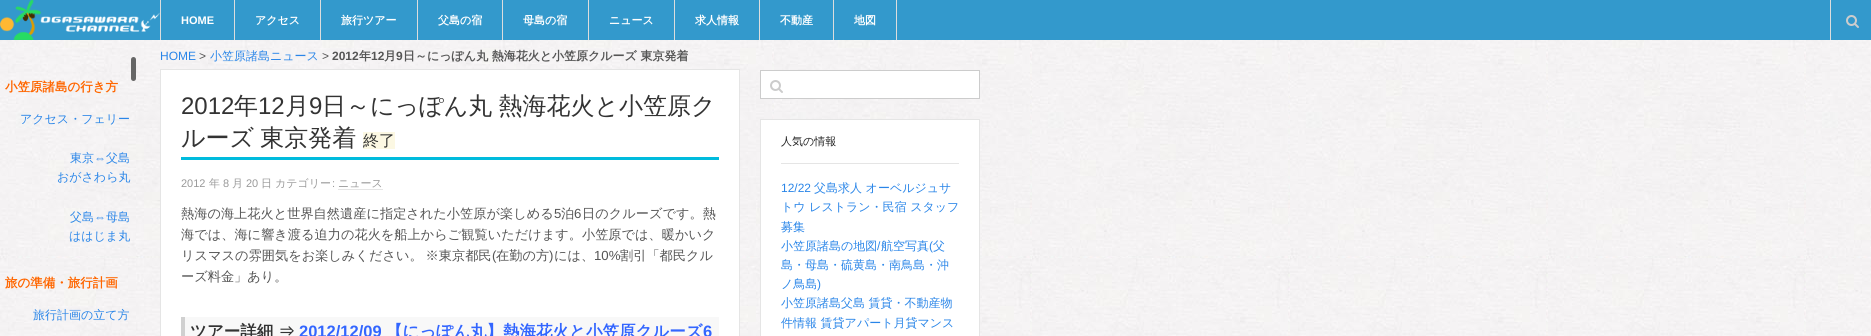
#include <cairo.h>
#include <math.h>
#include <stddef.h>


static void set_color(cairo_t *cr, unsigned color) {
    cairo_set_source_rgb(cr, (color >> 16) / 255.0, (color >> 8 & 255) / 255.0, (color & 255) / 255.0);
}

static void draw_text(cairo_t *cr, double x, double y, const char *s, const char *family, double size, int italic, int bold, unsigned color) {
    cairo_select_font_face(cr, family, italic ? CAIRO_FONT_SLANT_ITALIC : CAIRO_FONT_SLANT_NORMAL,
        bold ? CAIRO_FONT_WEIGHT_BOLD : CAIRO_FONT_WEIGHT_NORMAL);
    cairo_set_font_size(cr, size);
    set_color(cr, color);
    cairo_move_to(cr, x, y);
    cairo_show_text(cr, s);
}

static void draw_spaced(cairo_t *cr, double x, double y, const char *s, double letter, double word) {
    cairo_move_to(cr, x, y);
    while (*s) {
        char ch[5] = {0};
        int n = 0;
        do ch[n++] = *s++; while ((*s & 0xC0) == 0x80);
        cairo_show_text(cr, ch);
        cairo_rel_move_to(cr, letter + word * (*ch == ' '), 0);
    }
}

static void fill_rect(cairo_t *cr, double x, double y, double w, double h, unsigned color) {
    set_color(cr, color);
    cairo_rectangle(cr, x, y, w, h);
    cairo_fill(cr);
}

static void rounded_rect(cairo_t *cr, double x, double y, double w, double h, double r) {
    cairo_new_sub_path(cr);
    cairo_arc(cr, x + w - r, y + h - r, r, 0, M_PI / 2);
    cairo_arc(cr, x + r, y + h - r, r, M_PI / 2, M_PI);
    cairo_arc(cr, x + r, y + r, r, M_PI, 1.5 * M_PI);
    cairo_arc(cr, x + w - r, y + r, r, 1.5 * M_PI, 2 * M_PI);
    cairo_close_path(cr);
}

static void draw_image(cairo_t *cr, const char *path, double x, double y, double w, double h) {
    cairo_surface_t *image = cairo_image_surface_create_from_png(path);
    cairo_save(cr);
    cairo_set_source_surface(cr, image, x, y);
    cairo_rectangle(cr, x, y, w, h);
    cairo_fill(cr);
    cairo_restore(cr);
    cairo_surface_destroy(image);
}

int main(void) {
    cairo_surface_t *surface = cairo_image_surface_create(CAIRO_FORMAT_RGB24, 1871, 336);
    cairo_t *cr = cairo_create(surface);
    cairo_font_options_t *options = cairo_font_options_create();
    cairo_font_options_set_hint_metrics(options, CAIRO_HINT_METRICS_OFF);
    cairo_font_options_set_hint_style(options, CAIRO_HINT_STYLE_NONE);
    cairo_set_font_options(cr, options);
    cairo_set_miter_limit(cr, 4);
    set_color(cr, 0xFFFFFF);
    cairo_paint(cr);
    draw_image(cr, "assets/img1.png", 0, 40, 1871, 296);
    fill_rect(cr, 0, 0, 1871, 40, 0x3399CC);
    draw_image(cr, "assets/img2.png", 0, 0, 160, 40);
    fill_rect(cr, 234, 0, 1, 40, 0xDDDDDD);
    fill_rect(cr, 160, 0, 1, 40, 0xDDDDDD);
    draw_text(cr, 181, 24, "HOME", "Liberation Sans", 11, 0, 1, 0xFFFFFF);
    fill_rect(cr, 320, 0, 1, 40, 0xDDDDDD);
    draw_text(cr, 255, 24, "アクセス", "WenQuanYi Zen Hei", 11, 0, 1, 0xFFFFFF);
    fill_rect(cr, 417, 0, 1, 40, 0xDDDDDD);
    draw_text(cr, 341, 24, "旅行ツアー", "WenQuanYi Zen Hei", 11, 0, 1, 0xFFFFFF);
    fill_rect(cr, 502, 0, 1, 40, 0xDDDDDD);
    draw_text(cr, 438, 24, "父島の宿", "WenQuanYi Zen Hei", 11, 0, 1, 0xFFFFFF);
    fill_rect(cr, 588, 0, 1, 40, 0xDDDDDD);
    draw_text(cr, 523, 24, "母島の宿", "WenQuanYi Zen Hei", 11, 0, 1, 0xFFFFFF);
    fill_rect(cr, 674, 0, 1, 40, 0xDDDDDD);
    draw_text(cr, 609, 24, "ニュース", "WenQuanYi Zen Hei", 11, 0, 1, 0xFFFFFF);
    fill_rect(cr, 759, 0, 1, 40, 0xDDDDDD);
    draw_text(cr, 695, 24, "求人情報", "WenQuanYi Zen Hei", 11, 0, 1, 0xFFFFFF);
    fill_rect(cr, 833, 0, 1, 40, 0xDDDDDD);
    draw_text(cr, 780, 24, "不動産", "WenQuanYi Zen Hei", 11, 0, 1, 0xFFFFFF);
    fill_rect(cr, 896, 0, 1, 40, 0xDDDDDD);
    draw_text(cr, 854, 24, "地図", "WenQuanYi Zen Hei", 11, 0, 1, 0xFFFFFF);
    fill_rect(cr, 1830, 0, 1, 40, 0xDDDDDD);
    draw_image(cr, "assets/img3.png", 1846, 15, 13, 13);
    set_color(cr, 0x666666);
    rounded_rect(cr, 131, 57, 5, 24, 2.5);
    cairo_fill(cr);
    draw_text(cr, 5, 91, "小笠原諸島の行き方", "WenQuanYi Zen Hei", 12.5, 0, 1, 0xFF6600);
    draw_text(cr, 20, 123, "アクセス・フェリー", "WenQuanYi Zen Hei Medium", 12, 0, 0, 0x2985E8);
    draw_text(cr, 70, 162, "東京", "WenQuanYi Zen Hei Medium", 12, 0, 0, 0x2985E8);
    draw_text(cr, 94, 162, "⇔", "Liberation Sans", 12, 0, 0, 0x2985E8);
    draw_text(cr, 106, 162, "父島", "WenQuanYi Zen Hei Medium", 12, 0, 0, 0x2985E8);
    draw_text(cr, 57, 181, "おがさわら丸", "WenQuanYi Zen Hei Medium", 12, 0, 0, 0x2985E8);
    draw_text(cr, 70, 221, "父島", "WenQuanYi Zen Hei Medium", 12, 0, 0, 0x2985E8);
    draw_text(cr, 94, 221, "⇔", "Liberation Sans", 12, 0, 0, 0x2985E8);
    draw_text(cr, 106, 221, "母島", "WenQuanYi Zen Hei Medium", 12, 0, 0, 0x2985E8);
    draw_text(cr, 69, 240, "ははじま丸", "WenQuanYi Zen Hei Medium", 12, 0, 0, 0x2985E8);
    draw_text(cr, 5, 287, "旅の準備・旅行計画", "WenQuanYi Zen Hei", 12.5, 0, 1, 0xFF6600);
    draw_text(cr, 33, 319, "旅行計画の立て方", "WenQuanYi Zen Hei Medium", 12, 0, 0, 0x2985E8);
    draw_text(cr, 160, 60, "HOME", "Liberation Sans", 12, 0, 0, 0x2985E8);
    draw_text(cr, 199, 60, ">", "Liberation Sans", 12, 0, 0, 0x555555);
    draw_text(cr, 210, 60, "小笠原諸島ニュース", "WenQuanYi Zen Hei Medium", 12, 0, 0, 0x2985E8);
    draw_text(cr, 322, 60, ">", "Liberation Sans", 12, 0, 0, 0x555555);
    draw_text(cr, 332, 60, "2012", "Liberation Sans", 12, 0, 1, 0x555555);
    draw_text(cr, 359, 60, "年", "WenQuanYi Zen Hei", 12, 0, 1, 0x555555);
    draw_text(cr, 371, 60, "12", "Liberation Sans", 12, 0, 1, 0x555555);
    draw_text(cr, 384, 60, "月", "WenQuanYi Zen Hei", 12, 0, 1, 0x555555);
    draw_text(cr, 396, 60, "9", "Liberation Sans", 12, 0, 1, 0x555555);
    draw_text(cr, 403, 60, "日～にっぽん丸 熱海花火と小笠原クルーズ 東京発着", "WenQuanYi Zen Hei", 12, 0, 1, 0x555555);
    set_color(cr, 0xFFFFFF);
    cairo_rectangle(cr, 160.5, 69.5, 579, 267);
    cairo_fill_preserve(cr);
    set_color(cr, 0xE5E5E5);
    cairo_set_line_width(cr, 1);
    cairo_stroke(cr);
    fill_rect(cr, 181, 157, 538, 3, 0x00BBDD);
    draw_text(cr, 181, 114, "2012", "Liberation Sans", 24, 0, 0, 0x333333);
    draw_text(cr, 234, 114, "年", "WenQuanYi Zen Hei Medium", 24, 0, 0, 0x333333);
    draw_text(cr, 258, 114, "12", "Liberation Sans", 24, 0, 0, 0x333333);
    draw_text(cr, 285, 114, "月", "WenQuanYi Zen Hei Medium", 24, 0, 0, 0x333333);
    draw_text(cr, 309, 114, "9", "Liberation Sans", 24, 0, 0, 0x333333);
    cairo_select_font_face(cr, "WenQuanYi Zen Hei Medium", CAIRO_FONT_SLANT_NORMAL, CAIRO_FONT_WEIGHT_NORMAL);
    draw_spaced(cr, 322, 114, "日～にっぽん丸 熱海花火と小笠原ク", 0, -1);
    draw_spaced(cr, 181, 146, "ルーズ 東京発着", 0, -1);
    fill_rect(cr, 363, 132, 32, 17, 0xFCF8E3);
    draw_text(cr, 363, 146, "終了", "WenQuanYi Zen Hei Medium", 16, 0, 0, 0x333333);
    draw_text(cr, 181, 187, "2012", "Liberation Sans", 11, 0, 0, 0x999999);
    draw_text(cr, 209, 187, "年", "WenQuanYi Zen Hei Medium", 11, 0, 0, 0x999999);
    draw_text(cr, 223, 187, "8", "Liberation Sans", 11, 0, 0, 0x999999);
    draw_text(cr, 232, 187, "月", "WenQuanYi Zen Hei Medium", 11, 0, 0, 0x999999);
    draw_text(cr, 246, 187, "20", "Liberation Sans", 11, 0, 0, 0x999999);
    draw_text(cr, 261, 187, "日", "WenQuanYi Zen Hei Medium", 11, 0, 0, 0x999999);
    draw_text(cr, 275, 187, "カテゴリー", "WenQuanYi Zen Hei Medium", 11, 0, 0, 0x999999);
    draw_text(cr, 332, 187, ":", "Liberation Sans", 11, 0, 0, 0x999999);
    draw_text(cr, 338, 187, "ニュース", "WenQuanYi Zen Hei Medium", 11, 0, 0, 0x999999);
    fill_rect(cr, 338, 189, 45, 1, 0xE5E5E5);
    draw_text(cr, 181, 218, "熱海の海上花火と世界自然遺産に指定された小笠原が楽しめる", "WenQuanYi Zen Hei Medium", 13.2, 0, 0, 0x555555);
    draw_text(cr, 554, 218, "5", "Liberation Sans", 13.2, 0, 0, 0x555555);
    draw_text(cr, 561, 218, "泊", "WenQuanYi Zen Hei Medium", 13.2, 0, 0, 0x555555);
    draw_text(cr, 574, 218, "6", "Liberation Sans", 13.2, 0, 0, 0x555555);
    draw_text(cr, 582, 218, "日のクルーズです。熱", "WenQuanYi Zen Hei Medium", 13.2, 0, 0, 0x555555);
    draw_text(cr, 181, 239, "海では、海に響き渡る迫力の花火を船上からご観覧いただけます。小笠原では、暖かいク", "WenQuanYi Zen Hei Medium", 13.2, 0, 0, 0x555555);
    draw_spaced(cr, 181, 260, "リスマスの雰囲気をお楽しみください。 ※東京都民", 0, -1);
    draw_text(cr, 492, 260, "(", "Liberation Sans", 13.2, 0, 0, 0x555555);
    draw_text(cr, 496, 260, "在勤の方", "WenQuanYi Zen Hei Medium", 13.2, 0, 0, 0x555555);
    draw_text(cr, 549, 260, ")", "Liberation Sans", 13.2, 0, 0, 0x555555);
    draw_text(cr, 554, 260, "には、", "WenQuanYi Zen Hei Medium", 13.2, 0, 0, 0x555555);
    draw_text(cr, 594, 260, "10%", "Liberation Sans", 13.2, 0, 0, 0x555555);
    draw_text(cr, 620, 260, "割引「都民クル", "WenQuanYi Zen Hei Medium", 13.2, 0, 0, 0x555555);
    draw_text(cr, 181, 281, "ーズ料金」あり。", "WenQuanYi Zen Hei Medium", 13.2, 0, 0, 0x555555);
    fill_rect(cr, 185, 317, 534, 19, 0xF8F8F8);
    fill_rect(cr, 181, 317, 4, 19, 0xD0D0D0);
    draw_text(cr, 190, 337, "ツアー詳細 ⇒", "WenQuanYi Zen Hei", 16.5, 0, 1, 0x333333);
    draw_text(cr, 299, 337, "2012/12/09", "Liberation Sans", 16.5, 0, 1, 0x3366FF);
    draw_text(cr, 386, 337, "【にっぽん丸】熱海花火と小笠原クルーズ", "WenQuanYi Zen Hei", 16.5, 0, 1, 0x3366FF);
    draw_text(cr, 703, 337, "6", "Liberation Sans", 16.5, 0, 1, 0x3366FF);
    set_color(cr, 0xFFFFFF);
    cairo_rectangle(cr, 760.5, 70.5, 219, 28);
    cairo_fill_preserve(cr);
    set_color(cr, 0xCCCCCC);
    cairo_stroke(cr);
    draw_image(cr, "assets/img4.png", 770, 80, 13, 13);
    set_color(cr, 0xFFFFFF);
    cairo_rectangle(cr, 760.5, 119.5, 219, 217);
    cairo_fill_preserve(cr);
    set_color(cr, 0xE5E5E5);
    cairo_stroke(cr);
    fill_rect(cr, 781, 163, 178, 1, 0xE5E5E5);
    draw_text(cr, 781, 145, "人気の情報", "WenQuanYi Zen Hei Medium", 11, 0, 0, 0x222222);
    draw_text(cr, 781, 192, "12/22", "Liberation Sans", 12, 0, 0, 0x2985E8);
    draw_text(cr, 814, 192, "父島求人 オーベルジュサ", "WenQuanYi Zen Hei Medium", 12, 0, 0, 0x2985E8);
    draw_text(cr, 781, 211, "トウ レストラン・民宿 スタッフ", "WenQuanYi Zen Hei Medium", 12, 0, 0, 0x2985E8);
    draw_text(cr, 781, 231, "募集", "WenQuanYi Zen Hei Medium", 12, 0, 0, 0x2985E8);
    draw_text(cr, 781, 250, "小笠原諸島の地図", "WenQuanYi Zen Hei Medium", 12, 0, 0, 0x2985E8);
    draw_text(cr, 877, 250, "/", "Liberation Sans", 12, 0, 0, 0x2985E8);
    draw_text(cr, 881, 250, "航空写真", "WenQuanYi Zen Hei Medium", 12, 0, 0, 0x2985E8);
    draw_text(cr, 929, 250, "(", "Liberation Sans", 12, 0, 0, 0x2985E8);
    draw_text(cr, 933, 250, "父", "WenQuanYi Zen Hei Medium", 12, 0, 0, 0x2985E8);
    draw_text(cr, 781, 269, "島・母島・硫黄島・南鳥島・沖", "WenQuanYi Zen Hei Medium", 12, 0, 0, 0x2985E8);
    draw_text(cr, 781, 288, "ノ鳥島", "WenQuanYi Zen Hei Medium", 12, 0, 0, 0x2985E8);
    draw_text(cr, 817, 288, ")", "Liberation Sans", 12, 0, 0, 0x2985E8);
    draw_text(cr, 781, 307, "小笠原諸島父島 賃貸・不動産物", "WenQuanYi Zen Hei Medium", 12, 0, 0, 0x2985E8);
    draw_text(cr, 781, 327, "件情報 賃貸アパート月貸マンス", "WenQuanYi Zen Hei Medium", 12, 0, 0, 0x2985E8);
    cairo_surface_write_to_png(surface, "output.png");
    cairo_font_options_destroy(options);
    cairo_destroy(cr);
    cairo_surface_destroy(surface);
    return 0;
}
